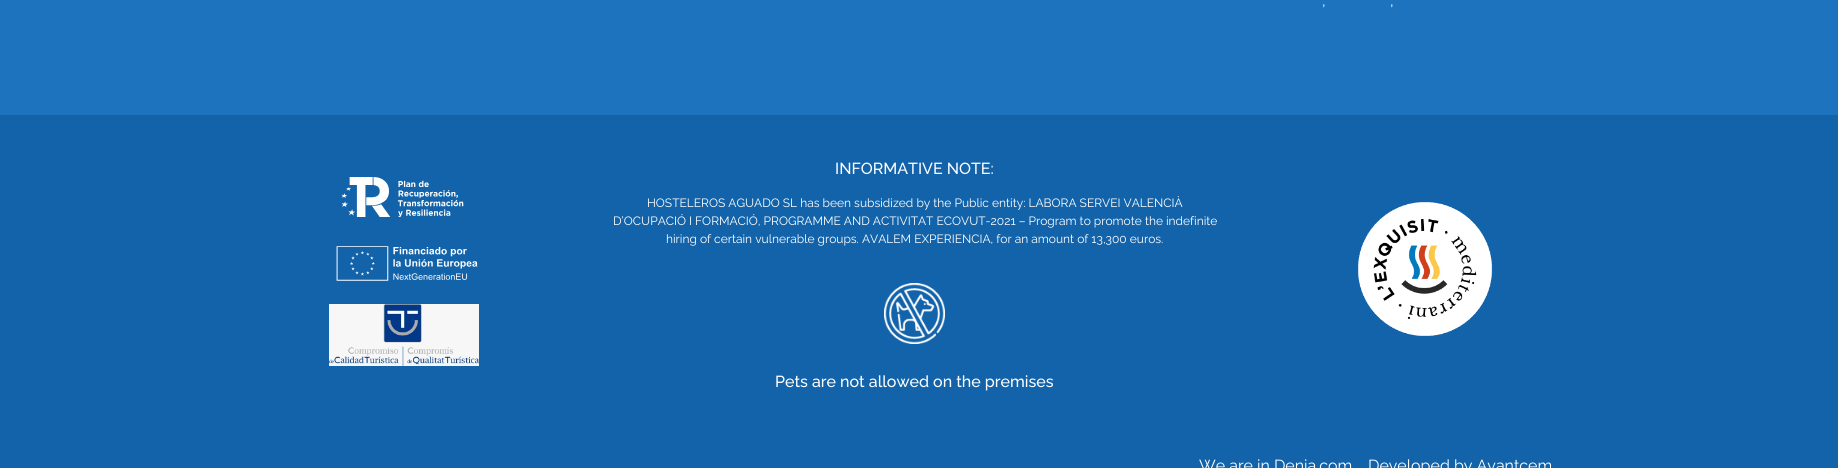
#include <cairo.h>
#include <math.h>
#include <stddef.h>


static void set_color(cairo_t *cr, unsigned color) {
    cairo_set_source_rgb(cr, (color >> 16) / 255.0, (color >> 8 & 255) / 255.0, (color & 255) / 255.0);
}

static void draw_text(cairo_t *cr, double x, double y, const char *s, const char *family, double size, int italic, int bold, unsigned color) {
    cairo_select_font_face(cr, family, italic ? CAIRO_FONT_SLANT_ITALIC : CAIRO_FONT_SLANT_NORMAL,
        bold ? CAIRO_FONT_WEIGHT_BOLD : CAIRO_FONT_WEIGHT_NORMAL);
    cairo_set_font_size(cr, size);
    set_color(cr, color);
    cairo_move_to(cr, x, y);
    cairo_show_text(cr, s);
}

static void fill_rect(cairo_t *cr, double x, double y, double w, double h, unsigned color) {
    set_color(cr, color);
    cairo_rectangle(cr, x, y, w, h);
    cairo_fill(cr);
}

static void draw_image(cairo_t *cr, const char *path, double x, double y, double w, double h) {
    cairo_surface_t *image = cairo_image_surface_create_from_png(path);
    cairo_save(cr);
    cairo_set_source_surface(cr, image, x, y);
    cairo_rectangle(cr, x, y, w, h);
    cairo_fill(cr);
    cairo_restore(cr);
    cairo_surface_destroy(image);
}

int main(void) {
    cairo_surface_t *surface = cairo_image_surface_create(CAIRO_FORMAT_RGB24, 1838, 468);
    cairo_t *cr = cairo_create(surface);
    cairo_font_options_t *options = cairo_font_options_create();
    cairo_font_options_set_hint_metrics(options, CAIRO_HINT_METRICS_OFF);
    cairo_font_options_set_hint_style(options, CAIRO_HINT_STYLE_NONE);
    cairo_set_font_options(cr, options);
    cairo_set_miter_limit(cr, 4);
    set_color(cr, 0x1E73BE);
    cairo_paint(cr);
    draw_text(cr, 1322, 6, ",", "Raleway", 16, 0, 0, 0xFFFFFF);
    draw_text(cr, 1390, 6, ",", "Raleway", 16, 0, 0, 0xFFFFFF);
    fill_rect(cr, 0, 115, 1838, 353, 0x1363AA);
    draw_image(cr, "assets/img1.png", 341, 177, 123, 40);
    draw_image(cr, "assets/img2.png", 336, 246, 142, 35);
    draw_image(cr, "assets/img3.png", 329, 304, 150, 62);
    draw_text(cr, 835, 174, "INFORMATIVE NOTE:", "Raleway Medium", 16, 0, 0, 0xFFFFFF);
    draw_text(cr, 647, 207, "HOSTELEROS AGUADO SL has been subsidized by the Public entity: LABORA SERVEI VALENCIÀ", "Raleway", 12, 0, 0, 0xFFFFFF);
    draw_text(cr, 613, 225, "D’OCUPACIÓ I FORMACIÓ, PROGRAMME AND ACTIVITAT ECOVUT-2021 – Program to promote the indefinite", "Raleway", 12, 0, 0, 0xFFFFFF);
    draw_text(cr, 666, 243, "hiring of certain vulnerable groups. AVALEM EXPERIENCIA, for an amount of 13,300 euros.", "Raleway", 12, 0, 0, 0xFFFFFF);
    draw_image(cr, "assets/img4.png", 884, 283, 61, 61);
    draw_text(cr, 775, 387, "Pets are not allowed on the premises", "Raleway Medium", 16, 0, 0, 0xFFFFFF);
    draw_image(cr, "assets/img5.png", 1358, 202, 135, 134);
    draw_text(cr, 1199, 471, "We are in Denia.com", "Raleway", 16, 0, 0, 0xFFFFFF);
    draw_text(cr, 1368, 471, "Developed by Avantcem", "Raleway", 16, 0, 0, 0xFFFFFF);
    cairo_surface_write_to_png(surface, "output.png");
    cairo_font_options_destroy(options);
    cairo_destroy(cr);
    cairo_surface_destroy(surface);
    return 0;
}
